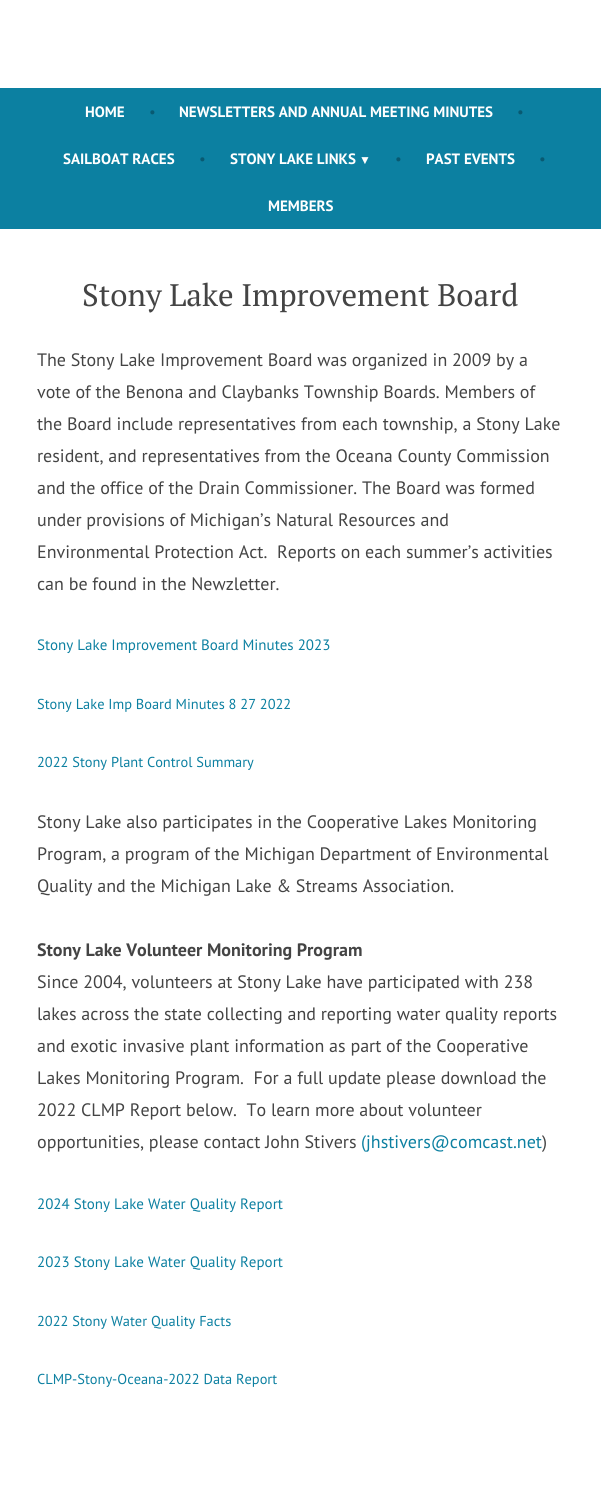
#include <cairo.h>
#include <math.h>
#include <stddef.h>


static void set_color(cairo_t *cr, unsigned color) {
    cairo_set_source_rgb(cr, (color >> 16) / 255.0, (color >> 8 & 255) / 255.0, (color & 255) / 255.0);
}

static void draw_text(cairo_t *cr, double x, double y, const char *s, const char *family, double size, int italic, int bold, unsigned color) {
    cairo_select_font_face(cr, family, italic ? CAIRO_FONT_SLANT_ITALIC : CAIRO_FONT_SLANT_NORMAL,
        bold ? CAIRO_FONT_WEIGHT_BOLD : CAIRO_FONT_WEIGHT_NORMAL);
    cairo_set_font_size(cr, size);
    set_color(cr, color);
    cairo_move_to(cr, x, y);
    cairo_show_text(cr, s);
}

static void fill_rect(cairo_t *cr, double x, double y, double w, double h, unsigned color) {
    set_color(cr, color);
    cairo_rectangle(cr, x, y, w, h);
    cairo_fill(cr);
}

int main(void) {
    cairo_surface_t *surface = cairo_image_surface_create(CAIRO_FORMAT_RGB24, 601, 1501);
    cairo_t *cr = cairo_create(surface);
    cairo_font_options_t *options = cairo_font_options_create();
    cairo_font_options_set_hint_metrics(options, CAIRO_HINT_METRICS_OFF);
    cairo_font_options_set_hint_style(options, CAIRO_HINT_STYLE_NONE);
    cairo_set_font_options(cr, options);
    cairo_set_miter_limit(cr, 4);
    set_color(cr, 0xFFFFFF);
    cairo_paint(cr);
    fill_rect(cr, 0, 88, 601, 141, 0x0C80A1);
    draw_text(cr, 85, 117, "HOME", "PT Sans", 15, 0, 1, 0xFFFFFF);
    draw_text(cr, 149, 117, "•", "PT Sans", 15, 0, 0, 0x085A72);
    draw_text(cr, 179, 117, "NEWSLETTERS AND ANNUAL MEETING MINUTES", "PT Sans", 15, 0, 1, 0xFFFFFF);
    draw_text(cr, 517, 117, "•", "PT Sans", 15, 0, 0, 0x085A72);
    draw_text(cr, 63, 164, "SAILBOAT RACES", "PT Sans", 15, 0, 1, 0xFFFFFF);
    draw_text(cr, 199, 164, "•", "PT Sans", 15, 0, 0, 0x085A72);
    draw_text(cr, 230, 164, "STONY LAKE LINKS", "PT Sans", 15, 0, 1, 0xFFFFFF);
    draw_text(cr, 359, 164, "▼", "Liberation Sans", 12, 0, 1, 0xFFFFFF);
    draw_text(cr, 395, 164, "•", "PT Sans", 15, 0, 0, 0x085A72);
    draw_text(cr, 426, 164, "PAST EVENTS", "PT Sans", 15, 0, 1, 0xFFFFFF);
    draw_text(cr, 539, 164, "•", "PT Sans", 15, 0, 0, 0x085A72);
    draw_text(cr, 268, 211, "MEMBERS", "PT Sans", 15, 0, 1, 0xFFFFFF);
    draw_text(cr, 82, 306, "Stony Lake Improvement Board", "PT Serif", 31.1, 0, 0, 0x444444);
    draw_text(cr, 37, 366, "The Stony Lake Improvement Board was organized in 2009 by a", "PT Sans", 18, 0, 0, 0x444444);
    draw_text(cr, 37, 398, "vote of the Benona and Claybanks Township Boards. Members of", "PT Sans", 18, 0, 0, 0x444444);
    draw_text(cr, 37, 430, "the Board include representatives from each township, a Stony Lake", "PT Sans", 18, 0, 0, 0x444444);
    draw_text(cr, 37, 462, "resident, and representatives from the Oceana County Commission", "PT Sans", 18, 0, 0, 0x444444);
    draw_text(cr, 37, 494, "and the office of the Drain Commissioner. The Board was formed", "PT Sans", 18, 0, 0, 0x444444);
    draw_text(cr, 37, 526, "under provisions of Michigan’s Natural Resources and", "PT Sans", 18, 0, 0, 0x444444);
    draw_text(cr, 37, 558, "Environmental Protection Act.  Reports on each summer’s activities", "PT Sans", 18, 0, 0, 0x444444);
    draw_text(cr, 37, 590, "can be found in the Newzletter.", "PT Sans", 18, 0, 0, 0x444444);
    draw_text(cr, 37, 650, "Stony Lake Improvement Board Minutes 2023", "PT Sans", 15, 0, 0, 0x0C80A1);
    draw_text(cr, 37, 709, "Stony Lake Imp Board Minutes 8 27 2022", "PT Sans", 14.4, 0, 0, 0x0C80A1);
    draw_text(cr, 37, 767, "2022 Stony Plant Control Summary", "PT Sans", 14.4, 0, 0, 0x0C80A1);
    draw_text(cr, 37, 828, "Stony Lake also participates in the Cooperative Lakes Monitoring", "PT Sans", 18, 0, 0, 0x444444);
    draw_text(cr, 37, 860, "Program, a program of the Michigan Department of Environmental", "PT Sans", 18, 0, 0, 0x444444);
    draw_text(cr, 37, 892, "Quality and the Michigan Lake & Streams Association.", "PT Sans", 18, 0, 0, 0x444444);
    draw_text(cr, 37, 956, "Stony Lake Volunteer Monitoring Program", "PT Sans", 18, 0, 1, 0x444444);
    draw_text(cr, 37, 988, "Since 2004, volunteers at Stony Lake have participated with 238", "PT Sans", 18, 0, 0, 0x444444);
    draw_text(cr, 37, 1020, "lakes across the state collecting and reporting water quality reports", "PT Sans", 18, 0, 0, 0x444444);
    draw_text(cr, 37, 1052, "and exotic invasive plant information as part of the Cooperative", "PT Sans", 18, 0, 0, 0x444444);
    draw_text(cr, 37, 1084, "Lakes Monitoring Program.  For a full update please download the", "PT Sans", 18, 0, 0, 0x444444);
    draw_text(cr, 37, 1116, "2022 CLMP Report below.  To learn more about volunteer", "PT Sans", 18, 0, 0, 0x444444);
    draw_text(cr, 37, 1148, "opportunities, please contact John Stivers", "PT Sans", 18, 0, 0, 0x444444);
    draw_text(cr, 361, 1148, "(jhstivers@comcast.net", "PT Sans", 18, 0, 0, 0x0C80A1);
    draw_text(cr, 542, 1148, ")", "PT Sans", 18, 0, 0, 0x444444);
    draw_text(cr, 37, 1209, "2024 Stony Lake Water Quality Report", "PT Sans", 15, 0, 0, 0x0C80A1);
    draw_text(cr, 37, 1267, "2023 Stony Lake Water Quality Report", "PT Sans", 15, 0, 0, 0x0C80A1);
    draw_text(cr, 37, 1326, "2022 Stony Water Quality Facts", "PT Sans", 14.4, 0, 0, 0x0C80A1);
    draw_text(cr, 37, 1384, "CLMP-Stony-Oceana-2022 Data Report", "PT Sans", 14.4, 0, 0, 0x0C80A1);
    cairo_surface_write_to_png(surface, "output.png");
    cairo_font_options_destroy(options);
    cairo_destroy(cr);
    cairo_surface_destroy(surface);
    return 0;
}
